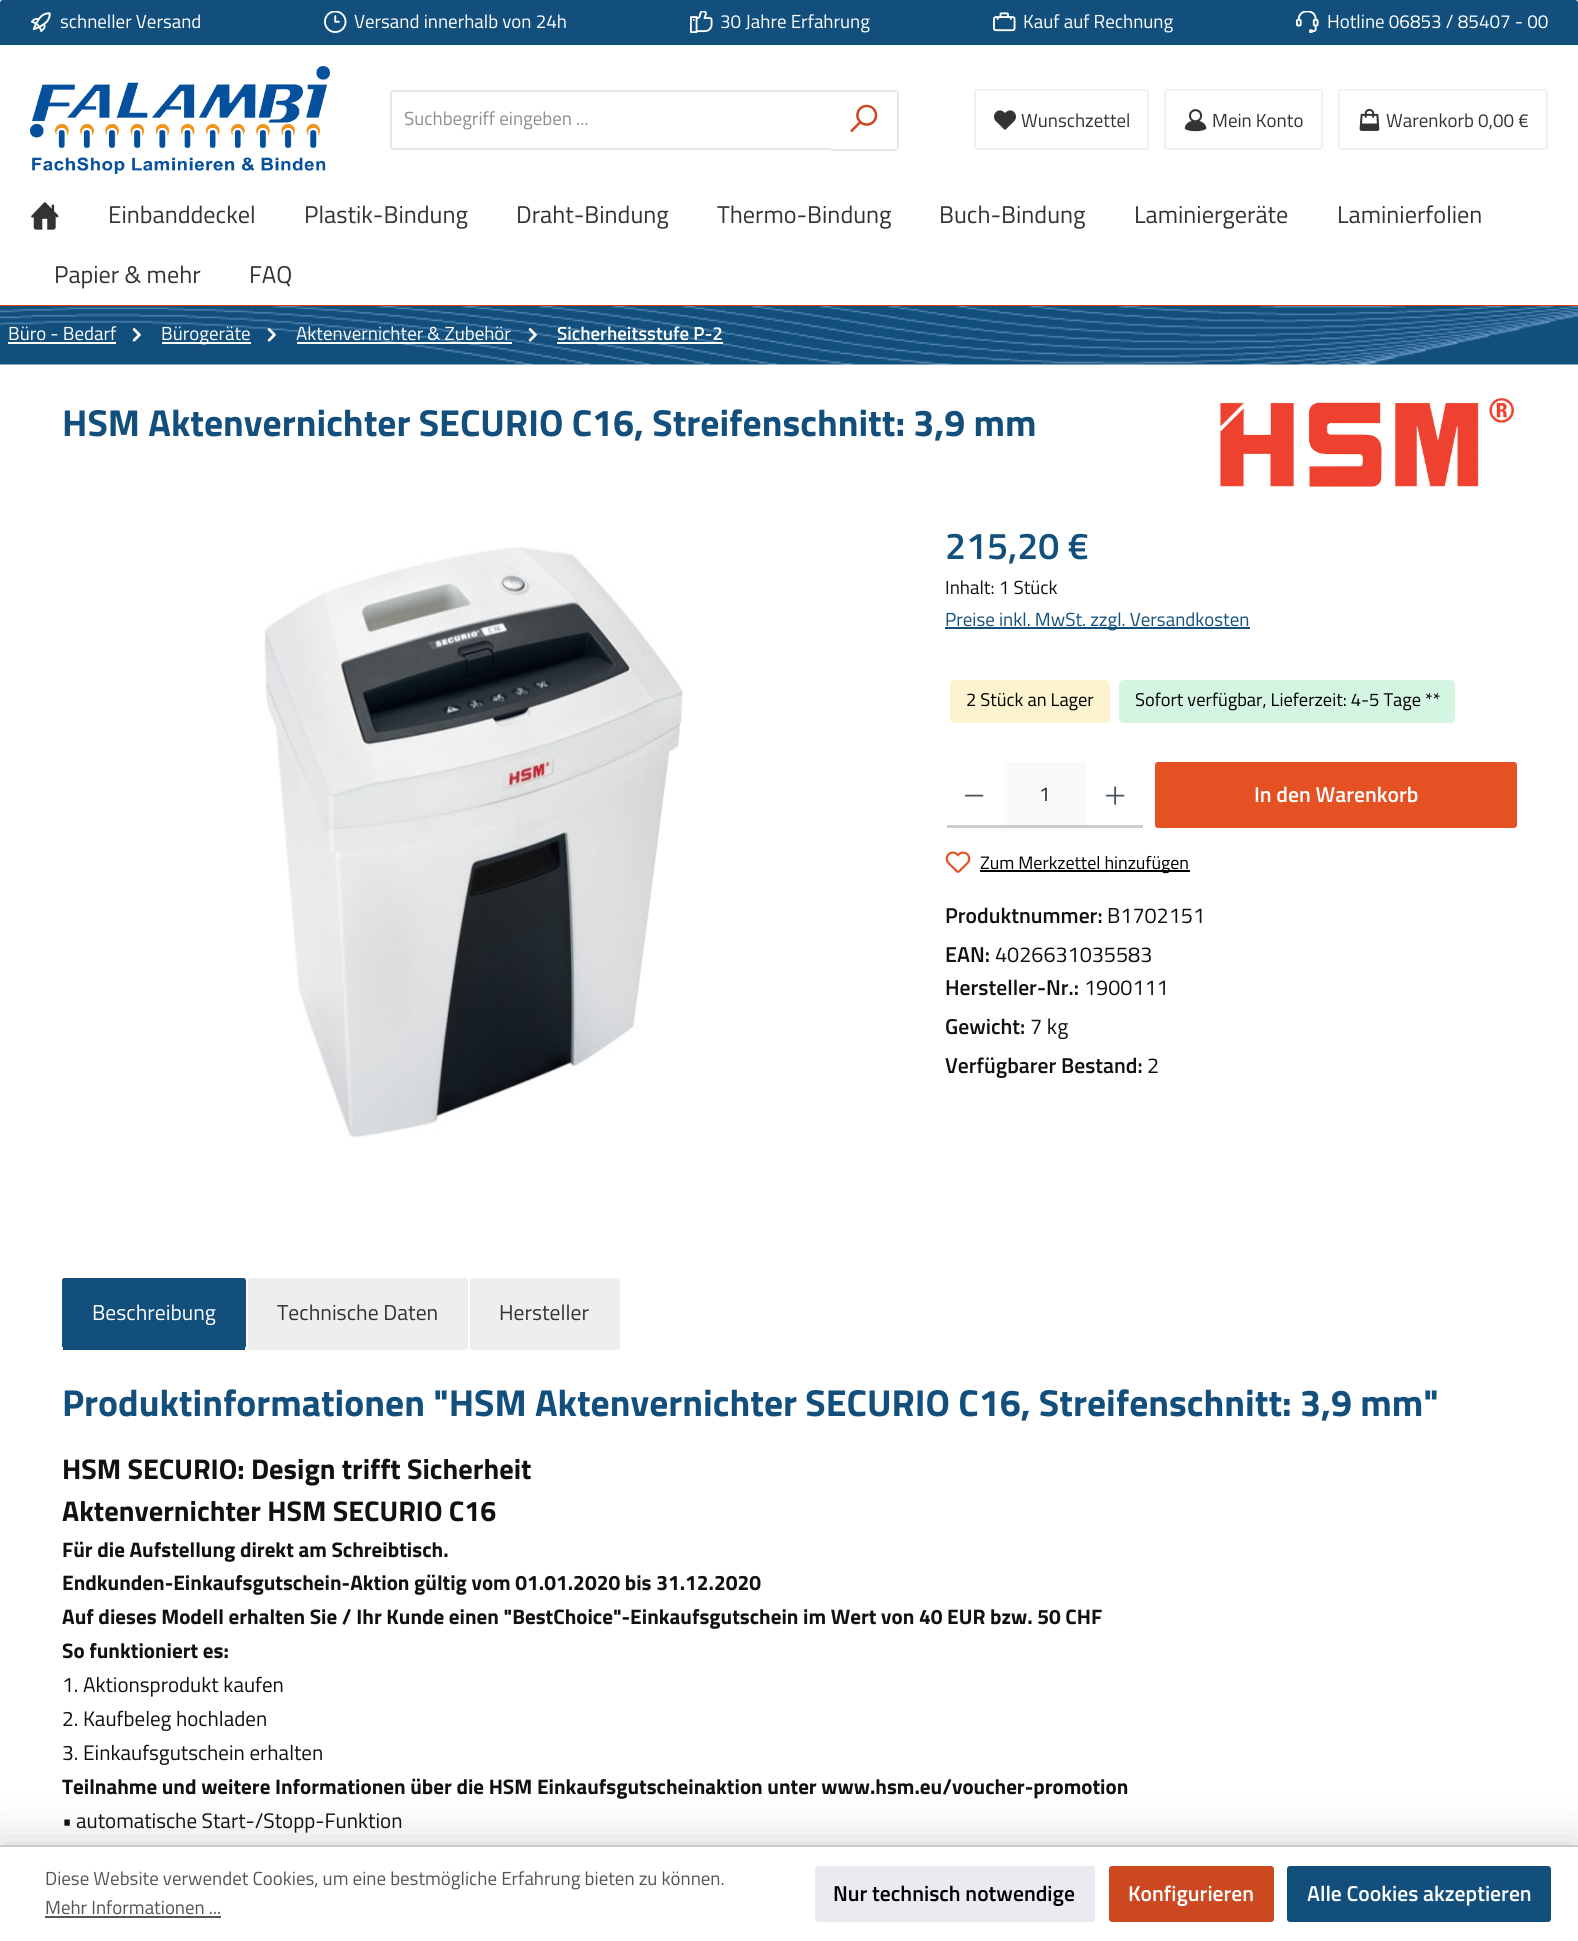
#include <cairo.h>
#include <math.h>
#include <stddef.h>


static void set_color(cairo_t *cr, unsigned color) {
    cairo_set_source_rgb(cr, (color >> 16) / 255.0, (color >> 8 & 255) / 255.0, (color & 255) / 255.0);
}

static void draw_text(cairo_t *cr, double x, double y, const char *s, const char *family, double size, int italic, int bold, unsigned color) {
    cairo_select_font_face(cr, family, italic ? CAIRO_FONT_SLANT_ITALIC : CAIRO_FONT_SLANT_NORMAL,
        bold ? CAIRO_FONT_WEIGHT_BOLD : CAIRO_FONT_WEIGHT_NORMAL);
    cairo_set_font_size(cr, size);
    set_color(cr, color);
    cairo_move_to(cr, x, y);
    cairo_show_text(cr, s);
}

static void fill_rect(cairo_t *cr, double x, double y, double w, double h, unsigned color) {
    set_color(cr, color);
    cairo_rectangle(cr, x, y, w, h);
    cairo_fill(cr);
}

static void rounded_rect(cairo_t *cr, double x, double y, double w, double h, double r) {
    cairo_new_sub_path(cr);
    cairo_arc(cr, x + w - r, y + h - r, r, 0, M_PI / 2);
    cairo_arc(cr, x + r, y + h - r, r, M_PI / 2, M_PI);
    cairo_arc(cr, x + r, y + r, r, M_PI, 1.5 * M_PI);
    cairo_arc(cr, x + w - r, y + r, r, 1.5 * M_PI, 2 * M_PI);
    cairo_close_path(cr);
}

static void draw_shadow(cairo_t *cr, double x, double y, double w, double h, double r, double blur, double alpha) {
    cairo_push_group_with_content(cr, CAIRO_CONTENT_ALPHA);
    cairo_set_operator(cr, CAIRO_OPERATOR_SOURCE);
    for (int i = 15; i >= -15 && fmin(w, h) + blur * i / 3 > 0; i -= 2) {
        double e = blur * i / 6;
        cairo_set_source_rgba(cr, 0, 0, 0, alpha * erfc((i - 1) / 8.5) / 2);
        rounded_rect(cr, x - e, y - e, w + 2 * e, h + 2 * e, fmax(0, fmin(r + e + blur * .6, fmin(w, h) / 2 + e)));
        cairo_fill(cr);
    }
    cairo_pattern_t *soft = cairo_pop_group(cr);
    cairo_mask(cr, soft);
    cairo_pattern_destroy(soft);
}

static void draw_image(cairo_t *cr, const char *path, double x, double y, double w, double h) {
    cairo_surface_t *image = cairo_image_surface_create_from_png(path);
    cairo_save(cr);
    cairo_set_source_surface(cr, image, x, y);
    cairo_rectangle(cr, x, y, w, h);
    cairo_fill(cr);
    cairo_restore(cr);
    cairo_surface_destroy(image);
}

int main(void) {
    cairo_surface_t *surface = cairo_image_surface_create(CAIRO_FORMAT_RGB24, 1578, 1941);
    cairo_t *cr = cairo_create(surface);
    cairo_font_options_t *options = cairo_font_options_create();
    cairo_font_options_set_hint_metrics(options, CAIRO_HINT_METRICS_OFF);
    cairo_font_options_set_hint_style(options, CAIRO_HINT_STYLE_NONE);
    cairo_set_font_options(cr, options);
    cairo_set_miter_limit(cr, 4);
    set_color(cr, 0xFFFFFF);
    cairo_paint(cr);
    draw_image(cr, "assets/img1.png", 0, 0, 1578, 3);
    set_color(cr, 0x000000);
    draw_shadow(cr, 0, 0, 1578, 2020, 11, 22.5, 0.3);
    set_color(cr, 0xFFFFFF);
    rounded_rect(cr, 0, 0, 1578, 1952, 11);
    cairo_fill(cr);
    set_color(cr, 0x124F7C);
    cairo_new_path(cr);
    cairo_move_to(cr, 3, 0);
    cairo_line_to(cr, 1575, 0);
    cairo_curve_to(cr, 1576.5, 0, 1578, 1.5, 1578, 3);
    cairo_line_to(cr, 1578, 45);
    cairo_line_to(cr, 0, 45);
    cairo_line_to(cr, 0, 3);
    cairo_curve_to(cr, 0, 1.5, 1.5, 0, 3, 0);
    cairo_close_path(cr);
    cairo_fill(cr);
    draw_image(cr, "assets/img2.png", 31, 12, 20, 20);
    draw_text(cr, 60, 28, "schneller Versand", "Titillium Web", 18.9, 0, 0, 0xFFFFFF);
    draw_image(cr, "assets/img3.png", 324, 11, 23, 22);
    draw_text(cr, 354, 28, "Versand innerhalb von 24h", "Titillium Web", 18.9, 0, 0, 0xFFFFFF);
    draw_image(cr, "assets/img4.png", 690, 11, 23, 22);
    draw_text(cr, 720, 28, "30 Jahre Erfahrung", "Titillium Web", 18.9, 0, 0, 0xFFFFFF);
    draw_image(cr, "assets/img5.png", 993, 12, 23, 20);
    draw_text(cr, 1023, 28, "Kauf auf Rechnung", "Titillium Web", 18.9, 0, 0, 0xFFFFFF);
    draw_image(cr, "assets/img6.png", 1296, 11, 23, 22);
    draw_text(cr, 1327, 28, "Hotline 06853 / 85407 - 00", "Titillium Web", 18.9, 0, 0, 0xFFFFFF);
    draw_image(cr, "assets/img7.png", 30, 66, 300, 108);
    cairo_new_path(cr);
    cairo_move_to(cr, 393, 91);
    cairo_line_to(cr, 832, 91);
    cairo_line_to(cr, 832, 149);
    cairo_line_to(cr, 393, 149);
    cairo_curve_to(cr, 392, 149, 391, 148, 391, 147);
    cairo_line_to(cr, 391, 93);
    cairo_curve_to(cr, 391, 92, 392, 91, 393, 91);
    cairo_close_path(cr);
    set_color(cr, 0xE4E7EA);
    cairo_stroke(cr);
    draw_text(cr, 404, 125, "Suchbegriff eingeben ...", "Titillium Web", 18.9, 0, 0, 0x8E8E8E);
    set_color(cr, 0xFFFFFF);
    cairo_new_path(cr);
    cairo_move_to(cr, 831, 90);
    cairo_line_to(cr, 896, 90);
    cairo_curve_to(cr, 897.5, 90, 899, 91.5, 899, 93);
    cairo_line_to(cr, 899, 147);
    cairo_curve_to(cr, 899, 148.5, 897.5, 150, 896, 150);
    cairo_line_to(cr, 831, 150);
    cairo_close_path(cr);
    cairo_fill(cr);
    fill_rect(cr, 831, 90, 66, 2, 0xE4E7EA);
    fill_rect(cr, 897, 92, 2, 57, 0xE4E7EA);
    fill_rect(cr, 831, 149, 66, 2, 0xE4E7EA);
    draw_image(cr, "assets/img8.png", 850, 104, 28, 28);
    rounded_rect(cr, 975, 90, 173, 59, 2);
    set_color(cr, 0xEEF2F5);
    cairo_stroke(cr);
    draw_image(cr, "assets/img9.png", 994, 110, 22, 20);
    draw_text(cr, 1021, 127, "Wunschzettel", "Titillium Web", 18.9, 0, 0, 0x333333);
    rounded_rect(cr, 1165, 90, 157, 59, 2);
    set_color(cr, 0xEEF2F5);
    cairo_stroke(cr);
    draw_image(cr, "assets/img10.png", 1184, 109, 23, 23);
    draw_text(cr, 1212, 127, "Mein Konto", "Titillium Web", 18.9, 0, 0, 0x333333);
    rounded_rect(cr, 1339, 90, 208, 59, 2);
    set_color(cr, 0xEEF2F5);
    cairo_stroke(cr);
    draw_image(cr, "assets/img11.png", 1359, 109, 21, 22);
    draw_text(cr, 1386, 127, "Warenkorb 0,00 €", "Titillium Web", 18.9, 0, 0, 0x333333);
    fill_rect(cr, 0, 305, 1578, 1, 0xD9400B);
    draw_image(cr, "assets/img12.png", 31, 202, 28, 28);
    draw_text(cr, 108, 223, "Einbanddeckel", "Titillium Web", 24.25, 0, 0, 0x333333);
    draw_text(cr, 304, 223, "Plastik-Bindung", "Titillium Web", 24.25, 0, 0, 0x333333);
    draw_text(cr, 516, 223, "Draht-Bindung", "Titillium Web", 24.25, 0, 0, 0x333333);
    draw_text(cr, 717, 223, "Thermo-Bindung", "Titillium Web", 24.25, 0, 0, 0x333333);
    draw_text(cr, 939, 223, "Buch-Bindung", "Titillium Web", 24.25, 0, 0, 0x333333);
    draw_text(cr, 1134, 223, "Laminiergeräte", "Titillium Web", 24.25, 0, 0, 0x333333);
    draw_text(cr, 1337, 223, "Laminierfolien", "Titillium Web", 24.25, 0, 0, 0x333333);
    draw_text(cr, 54, 283, "Papier & mehr", "Titillium Web", 24.25, 0, 0, 0x333333);
    draw_text(cr, 249, 283, "FAQ", "Titillium Web", 24.25, 0, 0, 0x333333);
    draw_image(cr, "assets/img13.png", 0, 306, 1578, 59);
    draw_text(cr, 8, 340, "Büro - Bedarf", "Titillium Web", 18.9, 0, 0, 0xFFFFFF);
    fill_rect(cr, 8, 342, 108, 2, 0xFFFFFF);
    draw_image(cr, "assets/img14.png", 132, 328, 9, 14);
    fill_rect(cr, 162, 342, 89, 2, 0xFFFFFF);
    draw_text(cr, 161, 340, "Bürogeräte", "Titillium Web", 18.9, 0, 0, 0xFFFFFF);
    draw_image(cr, "assets/img15.png", 267, 328, 9, 14);
    draw_text(cr, 296, 340, "Aktenvernichter & Zubehör", "Titillium Web", 18.9, 0, 0, 0xFFFFFF);
    fill_rect(cr, 297, 342, 215, 2, 0xFFFFFF);
    draw_image(cr, "assets/img16.png", 528, 328, 9, 14);
    draw_text(cr, 557, 340, "Sicherheitsstufe P-2", "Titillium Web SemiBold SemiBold", 18.9, 0, 0, 0xFFFFFF);
    fill_rect(cr, 557, 342, 166, 2, 0xFFFFFF);
    draw_text(cr, 62, 436, "HSM Aktenvernichter SECURIO C16, Streifenschnitt: 3,9 mm", "Titillium Web", 37.55, 0, 1, 0x124F7C);
    draw_image(cr, "assets/img17.png", 1220, 398, 294, 90);
    draw_image(cr, "assets/img18.png", 264, 547, 419, 591);
    draw_text(cr, 945, 559, "215,20 €", "Titillium Web SemiBold SemiBold", 37.55, 0, 0, 0x124F7C);
    draw_text(cr, 945, 594, "Inhalt: 1 Stück", "Titillium Web", 18.9, 0, 0, 0x111111);
    fill_rect(cr, 945, 627, 305, 2, 0x124F7C);
    draw_text(cr, 945, 626, "Preise inkl. MwSt. zzgl. Versandkosten", "Titillium Web", 18.9, 0, 0, 0x124F7C);
    set_color(cr, 0xFCF3CF);
    rounded_rect(cr, 950, 680, 160, 43, 5);
    cairo_fill(cr);
    draw_text(cr, 966, 706, "2 Stück an Lager", "Titillium Web", 18.4, 0, 0, 0x000000);
    set_color(cr, 0xD5F5E3);
    rounded_rect(cr, 1119, 680, 336, 43, 5);
    cairo_fill(cr);
    draw_text(cr, 1135, 706, "Sofort verfügbar, Lieferzeit: 4-5 Tage **", "Titillium Web", 18.4, 0, 0, 0x000000);
    fill_rect(cr, 1002, 825, 86, 3, 0xCCCCCC);
    set_color(cr, 0xFFFFFF);
    cairo_new_path(cr);
    cairo_move_to(cr, 948, 762);
    cairo_line_to(cr, 1004, 762);
    cairo_line_to(cr, 1004, 828);
    cairo_line_to(cr, 948, 828);
    cairo_curve_to(cr, 946.5, 828, 945, 826.5, 945, 825);
    cairo_line_to(cr, 945, 765);
    cairo_curve_to(cr, 945, 763.5, 946.5, 762, 948, 762);
    cairo_close_path(cr);
    cairo_fill(cr);
    fill_rect(cr, 947, 825, 57, 3, 0xCCCCCC);
    draw_image(cr, "assets/img19.png", 964, 794, 20, 3);
    fill_rect(cr, 1004, 762, 82, 63, 0xFAFAFA);
    draw_text(cr, 1039, 801, "1", "Titillium Web", 20, 0, 0, 0x222222);
    set_color(cr, 0xFFFFFF);
    cairo_new_path(cr);
    cairo_move_to(cr, 1086, 762);
    cairo_line_to(cr, 1142, 762);
    cairo_curve_to(cr, 1143.5, 762, 1145, 763.5, 1145, 765);
    cairo_line_to(cr, 1145, 825);
    cairo_curve_to(cr, 1145, 826.5, 1143.5, 828, 1142, 828);
    cairo_line_to(cr, 1086, 828);
    cairo_close_path(cr);
    cairo_fill(cr);
    fill_rect(cr, 1086, 825, 57, 3, 0xCCCCCC);
    draw_image(cr, "assets/img20.png", 1105, 786, 20, 19);
    set_color(cr, 0xE55123);
    rounded_rect(cr, 1156, 763, 360, 64, 2);
    cairo_fill_preserve(cr);
    cairo_stroke(cr);
    draw_text(cr, 1254, 802, "In den Warenkorb", "Titillium Web SemiBold SemiBold", 21.6, 0, 0, 0xFFFFFF);
    draw_image(cr, "assets/img21.png", 945, 851, 26, 22);
    fill_rect(cr, 980, 870, 210, 2, 0x000000);
    draw_text(cr, 980, 869, "Zum Merkzettel hinzufügen", "Titillium Web", 18, 0, 0, 0x000000);
    draw_text(cr, 945, 923, "Produktnummer:", "Titillium Web SemiBold SemiBold", 21.6, 0, 0, 0x111111);
    draw_text(cr, 1107, 923, "B1702151", "Titillium Web", 21.6, 0, 0, 0x111111);
    draw_text(cr, 945, 962, "EAN:", "Titillium Web SemiBold SemiBold", 21.6, 0, 0, 0x111111);
    draw_text(cr, 995, 962, "4026631035583", "Titillium Web", 21.6, 0, 0, 0x111111);
    draw_text(cr, 945, 995, "Hersteller-Nr.:", "Titillium Web SemiBold SemiBold", 21.6, 0, 0, 0x111111);
    draw_text(cr, 1084, 995, "1900111", "Titillium Web", 21.6, 0, 0, 0x111111);
    draw_text(cr, 945, 1034, "Gewicht:", "Titillium Web SemiBold SemiBold", 21.6, 0, 0, 0x111111);
    draw_text(cr, 1030, 1034, "7 kg", "Titillium Web", 21.6, 0, 0, 0x111111);
    draw_text(cr, 945, 1073, "Verfügbarer Bestand:", "Titillium Web SemiBold SemiBold", 21.6, 0, 0, 0x111111);
    draw_text(cr, 1147, 1073, "2", "Titillium Web", 21.6, 0, 0, 0x111111);
    set_color(cr, 0x124F7C);
    cairo_new_path(cr);
    cairo_move_to(cr, 64, 1278);
    cairo_line_to(cr, 243, 1278);
    cairo_curve_to(cr, 245, 1278, 246, 1279, 246, 1281);
    cairo_line_to(cr, 246, 1347);
    cairo_line_to(cr, 62, 1347);
    cairo_line_to(cr, 62, 1281);
    cairo_curve_to(cr, 62, 1279, 63, 1278, 64, 1278);
    cairo_close_path(cr);
    cairo_fill(cr);
    fill_rect(cr, 63, 1347, 182, 3, 0x124F7C);
    draw_text(cr, 92, 1320, "Beschreibung", "Titillium Web", 21.6, 0, 0, 0xFFFFFF);
    set_color(cr, 0xEEEEEE);
    rounded_rect(cr, 248, 1278, 220, 72, 3);
    cairo_fill(cr);
    fill_rect(cr, 249, 1349, 218, 1, 0xEEEEEE);
    draw_text(cr, 277, 1320, "Technische Daten", "Titillium Web", 21.6, 0, 0, 0x333333);
    set_color(cr, 0xEEEEEE);
    rounded_rect(cr, 470, 1278, 150, 72, 3);
    cairo_fill(cr);
    fill_rect(cr, 471, 1349, 1, 1, 0xEEEEEE);
    draw_text(cr, 499, 1320, "Hersteller", "Titillium Web", 21.6, 0, 0, 0x333333);
    draw_text(cr, 62, 1416, "Produktinformationen \"HSM Aktenvernichter SECURIO C16, Streifenschnitt: 3,9 mm\"", "Titillium Web", 37.55, 0, 1, 0x124F7C);
    draw_text(cr, 62, 1479, "HSM SECURIO: Design trifft Sicherheit", "Titillium Web", 28.5, 0, 1, 0x111111);
    draw_text(cr, 62, 1521, "Aktenvernichter HSM SECURIO C16", "Titillium Web", 28.5, 0, 1, 0x111111);
    draw_text(cr, 62, 1557, "Für die Aufstellung direkt am Schreibtisch.", "Titillium Web", 21, 0, 1, 0x111111);
    draw_text(cr, 62, 1590, "Endkunden-Einkaufsgutschein-Aktion gültig vom 01.01.2020 bis 31.12.2020", "Titillium Web", 21, 0, 1, 0x111111);
    draw_text(cr, 62, 1624, "Auf dieses Modell erhalten Sie / Ihr Kunde einen \"BestChoice\"-Einkaufsgutschein im Wert von 40 EUR bzw. 50 CHF", "Titillium Web", 21, 0, 1, 0x111111);
    draw_text(cr, 62, 1658, "So funktioniert es:", "Titillium Web", 21, 0, 1, 0x111111);
    draw_text(cr, 62, 1692, "1. Aktionsprodukt kaufen", "Titillium Web", 21, 0, 0, 0x111111);
    draw_text(cr, 62, 1726, "2. Kaufbeleg hochladen", "Titillium Web", 21, 0, 0, 0x111111);
    draw_text(cr, 62, 1760, "3. Einkaufsgutschein erhalten", "Titillium Web", 21, 0, 0, 0x111111);
    draw_text(cr, 62, 1794, "Teilnahme und weitere Informationen über die HSM Einkaufsgutscheinaktion unter www.hsm.eu/voucher-promotion", "Titillium Web", 21, 0, 1, 0x111111);
    draw_text(cr, 62, 1828, "•", "Titillium Web", 21.6, 0, 0, 0x111111);
    draw_text(cr, 76, 1828, "automatische Start-/Stopp-Funktion", "Titillium Web", 21, 0, 0, 0x111111);
    set_color(cr, 0x000000);
    draw_shadow(cr, 0, 1845, 1578, 96, 0, 22.5, 0.2);
    fill_rect(cr, 0, 1847, 1578, 94, 0xFFFFFF);
    fill_rect(cr, 0, 1845, 1578, 2, 0xCCCCCC);
    draw_text(cr, 45, 1885, "Diese Website verwendet Cookies, um eine bestmögliche Erfahrung bieten zu können.", "Titillium Web", 18.9, 0, 0, 0x555555);
    draw_text(cr, 45, 1914, "Mehr Informationen ...", "Titillium Web", 18.9, 0, 0, 0x555555);
    fill_rect(cr, 45, 1916, 176, 2, 0x555555);
    set_color(cr, 0xEAEAF0);
    rounded_rect(cr, 816, 1867, 278, 54, 2);
    cairo_fill_preserve(cr);
    cairo_stroke(cr);
    draw_text(cr, 833, 1901, "Nur technisch notwendige", "Titillium Web SemiBold SemiBold", 21.6, 0, 0, 0x000000);
    set_color(cr, 0xCB4820);
    rounded_rect(cr, 1110, 1867, 163, 54, 2);
    cairo_fill_preserve(cr);
    cairo_stroke(cr);
    draw_text(cr, 1128, 1901, "Konfigurieren", "Titillium Web SemiBold SemiBold", 21.6, 0, 0, 0xFFFFFF);
    set_color(cr, 0x124F7C);
    rounded_rect(cr, 1288, 1867, 262, 54, 2);
    cairo_fill_preserve(cr);
    cairo_stroke(cr);
    draw_text(cr, 1307, 1901, "Alle Cookies akzeptieren", "Titillium Web SemiBold SemiBold", 21.6, 0, 0, 0xFFFFFF);
    cairo_surface_write_to_png(surface, "output.png");
    cairo_font_options_destroy(options);
    cairo_destroy(cr);
    cairo_surface_destroy(surface);
    return 0;
}
